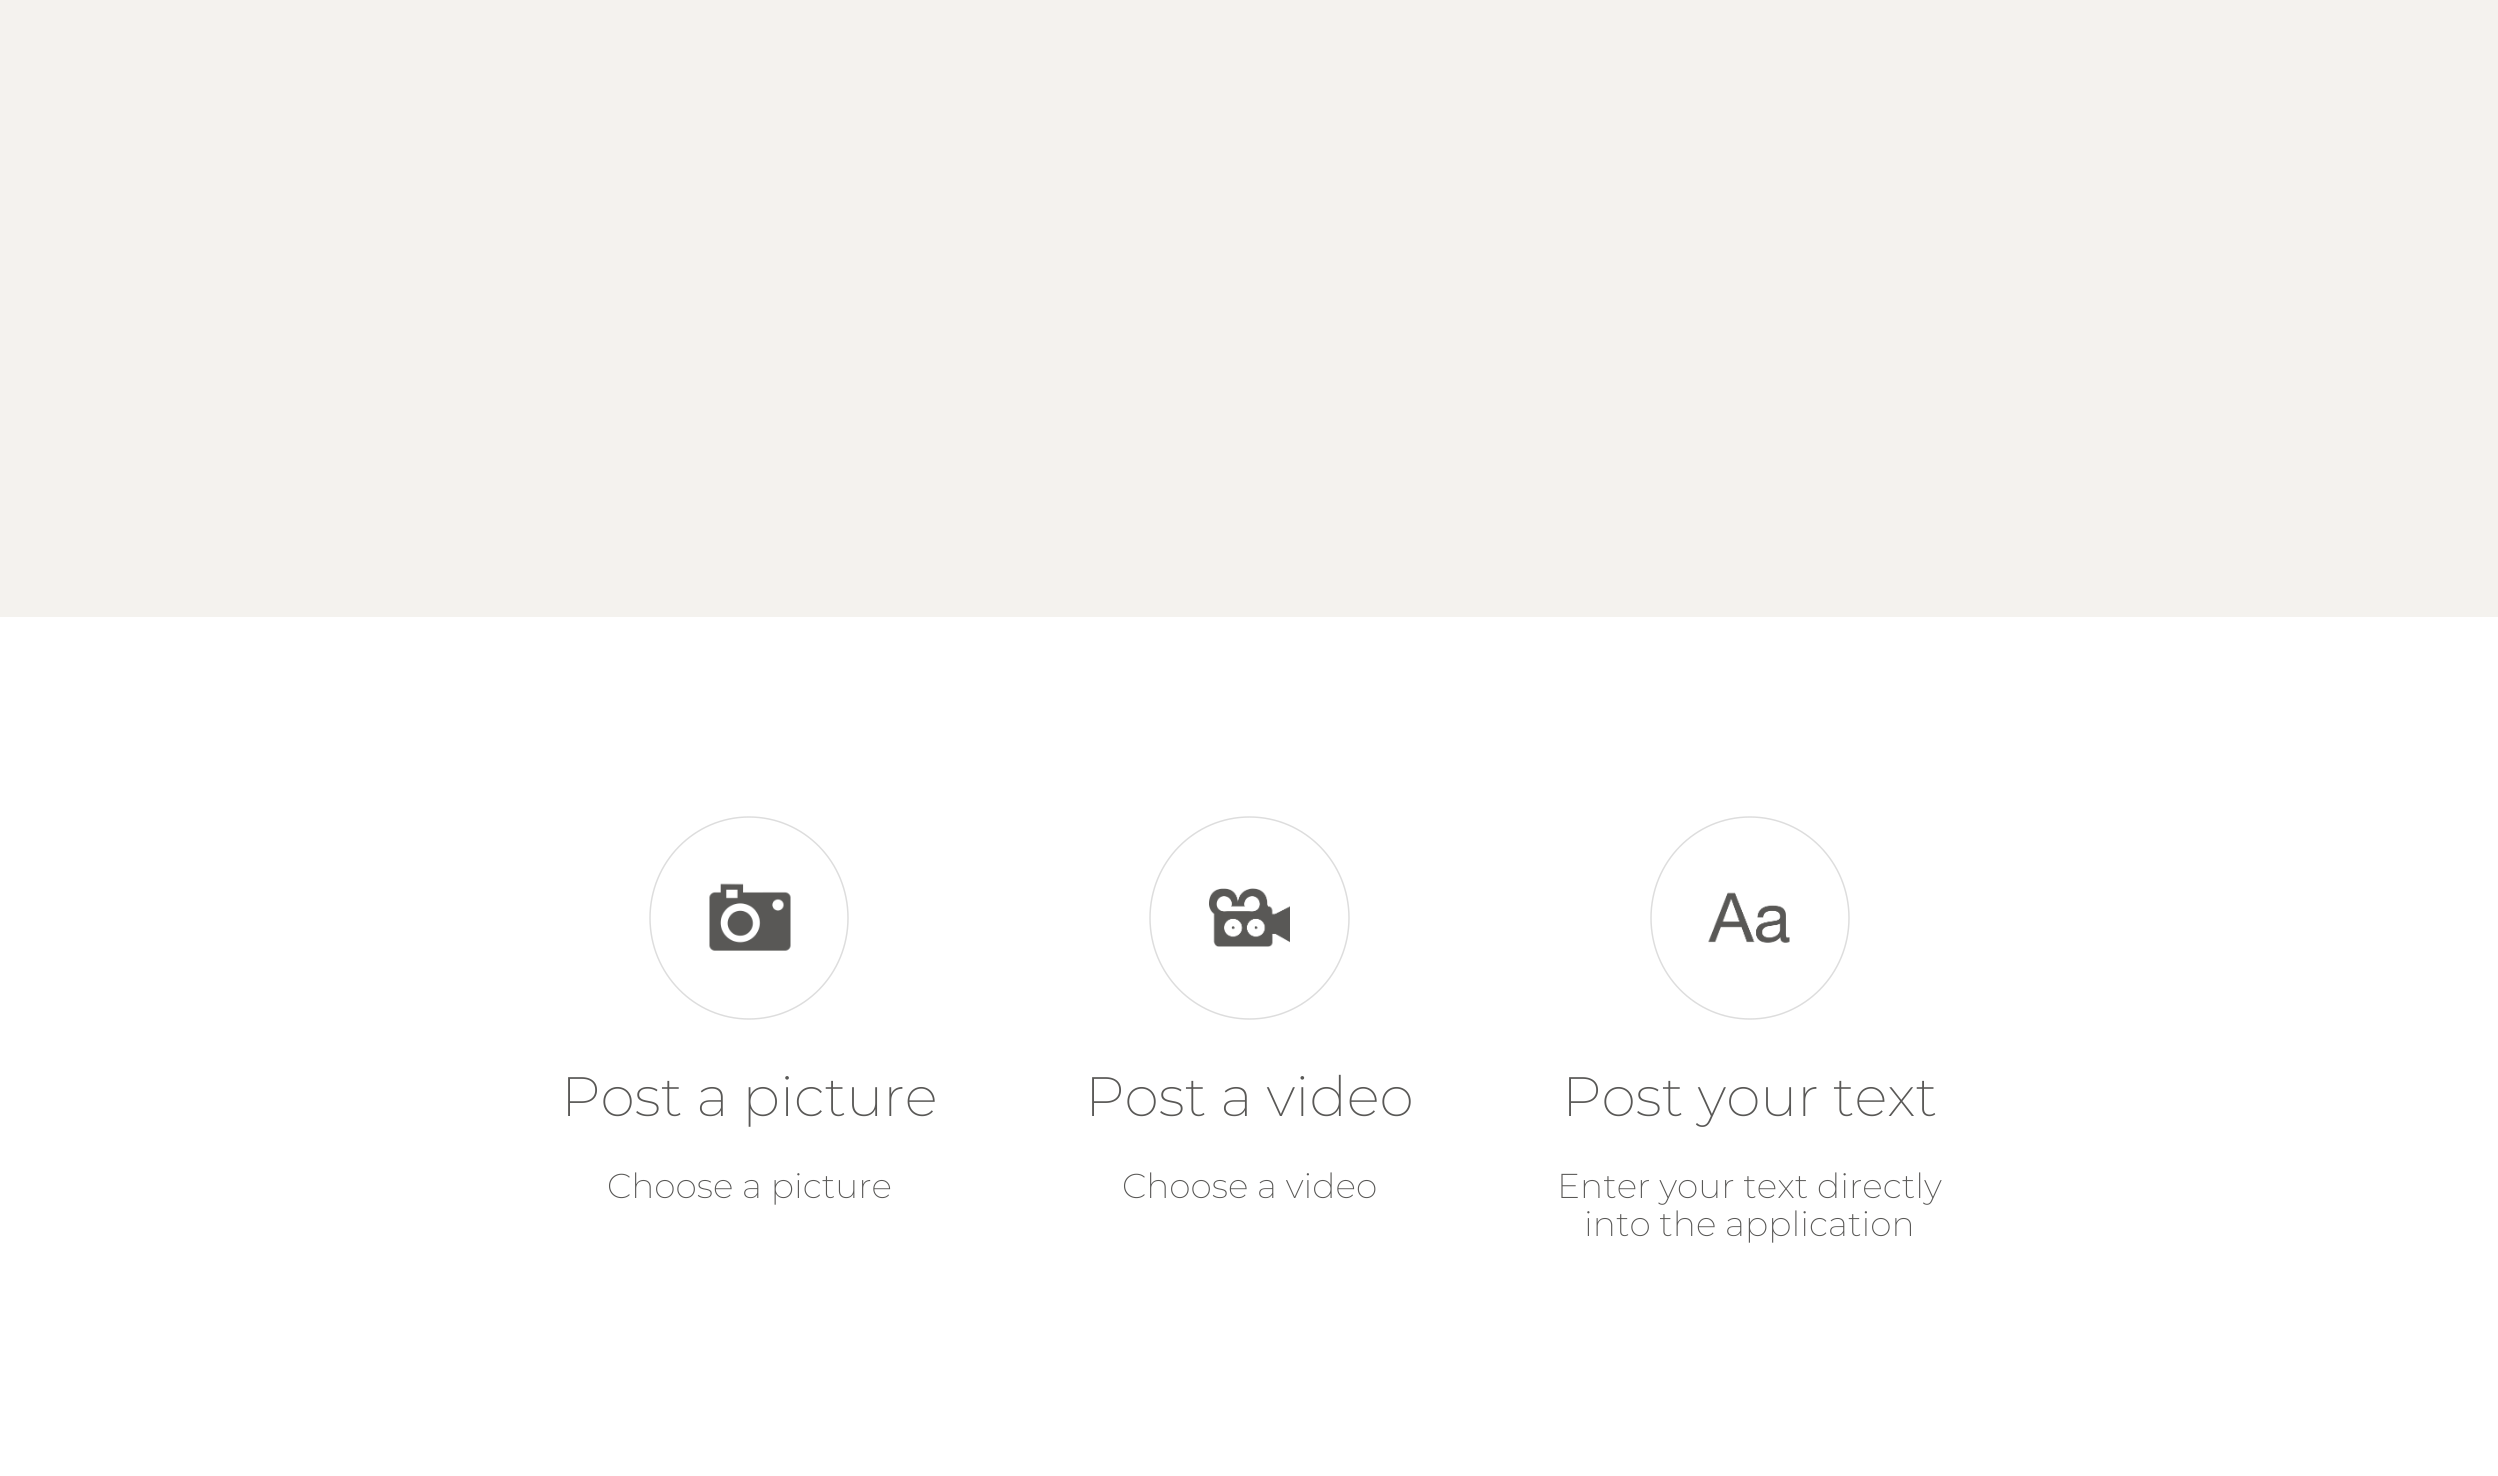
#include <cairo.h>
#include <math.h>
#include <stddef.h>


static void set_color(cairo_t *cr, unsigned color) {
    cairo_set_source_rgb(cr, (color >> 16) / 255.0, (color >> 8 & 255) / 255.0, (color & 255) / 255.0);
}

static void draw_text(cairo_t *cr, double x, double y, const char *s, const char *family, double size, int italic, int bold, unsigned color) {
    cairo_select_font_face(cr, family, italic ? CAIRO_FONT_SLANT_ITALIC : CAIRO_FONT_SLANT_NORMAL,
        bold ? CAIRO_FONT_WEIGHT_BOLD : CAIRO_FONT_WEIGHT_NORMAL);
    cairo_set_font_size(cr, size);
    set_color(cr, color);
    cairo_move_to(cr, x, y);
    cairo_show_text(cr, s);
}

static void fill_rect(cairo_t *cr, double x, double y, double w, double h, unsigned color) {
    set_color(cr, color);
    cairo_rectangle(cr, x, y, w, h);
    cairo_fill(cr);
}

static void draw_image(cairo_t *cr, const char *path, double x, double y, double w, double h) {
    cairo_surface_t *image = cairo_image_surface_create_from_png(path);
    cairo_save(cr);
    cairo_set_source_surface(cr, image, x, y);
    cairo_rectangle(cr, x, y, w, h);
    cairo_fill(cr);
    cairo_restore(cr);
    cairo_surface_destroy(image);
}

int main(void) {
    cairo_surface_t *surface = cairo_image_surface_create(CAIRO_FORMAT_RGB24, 2498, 1476);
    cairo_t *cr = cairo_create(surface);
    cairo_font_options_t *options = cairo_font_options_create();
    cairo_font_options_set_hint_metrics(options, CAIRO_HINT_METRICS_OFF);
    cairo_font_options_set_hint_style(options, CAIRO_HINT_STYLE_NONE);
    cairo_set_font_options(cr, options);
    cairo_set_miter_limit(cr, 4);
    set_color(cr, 0xFFFFFF);
    cairo_paint(cr);
    fill_rect(cr, 0, 0, 2498, 617, 0xF4F2EE);
    cairo_new_path(cr);
    cairo_move_to(cr, 749, 817);
    cairo_curve_to(cr, 804, 817, 848, 862, 848, 918);
    cairo_curve_to(cr, 848, 974, 804, 1019, 749, 1019);
    cairo_curve_to(cr, 694.5, 1019, 650, 974, 650, 918);
    cairo_curve_to(cr, 650, 862, 694.5, 817, 749, 817);
    cairo_close_path(cr);
    set_color(cr, 0xDDDDDD);
    cairo_set_line_width(cr, 1.5);
    cairo_stroke(cr);
    draw_image(cr, "assets/img1.png", 709, 883, 82, 68);
    draw_text(cr, 561, 1116, "Post a picture", "Montserrat ExtraLight", 55.5, 0, 0, 0x595856);
    draw_text(cr, 607, 1198, "Choose a picture", "Montserrat ExtraLight", 34.5, 0, 0, 0x595856);
    cairo_new_path(cr);
    cairo_move_to(cr, 1249.5, 817);
    cairo_curve_to(cr, 1304.5, 817, 1349, 862, 1349, 918);
    cairo_curve_to(cr, 1349, 974, 1304.5, 1019, 1249.5, 1019);
    cairo_curve_to(cr, 1194.5, 1019, 1150, 974, 1150, 918);
    cairo_curve_to(cr, 1150, 862, 1194.5, 817, 1249.5, 817);
    cairo_close_path(cr);
    set_color(cr, 0xDDDDDD);
    cairo_stroke(cr);
    draw_image(cr, "assets/img2.png", 1209, 888, 81, 59);
    draw_text(cr, 1085, 1116, "Post a video", "Montserrat ExtraLight", 55.5, 0, 0, 0x595856);
    draw_text(cr, 1122, 1198, "Choose a video", "Montserrat ExtraLight", 34.5, 0, 0, 0x595856);
    cairo_new_path(cr);
    cairo_move_to(cr, 1750, 817);
    cairo_curve_to(cr, 1804.5, 817, 1849, 862, 1849, 918);
    cairo_curve_to(cr, 1849, 974, 1804.5, 1019, 1750, 1019);
    cairo_curve_to(cr, 1695, 1019, 1651, 974, 1651, 918);
    cairo_curve_to(cr, 1651, 862, 1695, 817, 1750, 817);
    cairo_close_path(cr);
    set_color(cr, 0xDDDDDD);
    cairo_stroke(cr);
    draw_image(cr, "assets/img3.png", 1708, 892, 82, 51);
    draw_text(cr, 1562, 1116, "Post your text", "Montserrat ExtraLight", 55.5, 0, 0, 0x595856);
    draw_text(cr, 1557, 1198, "Enter your text directly", "Montserrat ExtraLight", 34.5, 0, 0, 0x595856);
    draw_text(cr, 1584, 1236, "into the application", "Montserrat ExtraLight", 34.5, 0, 0, 0x595856);
    cairo_surface_write_to_png(surface, "output.png");
    cairo_font_options_destroy(options);
    cairo_destroy(cr);
    cairo_surface_destroy(surface);
    return 0;
}
